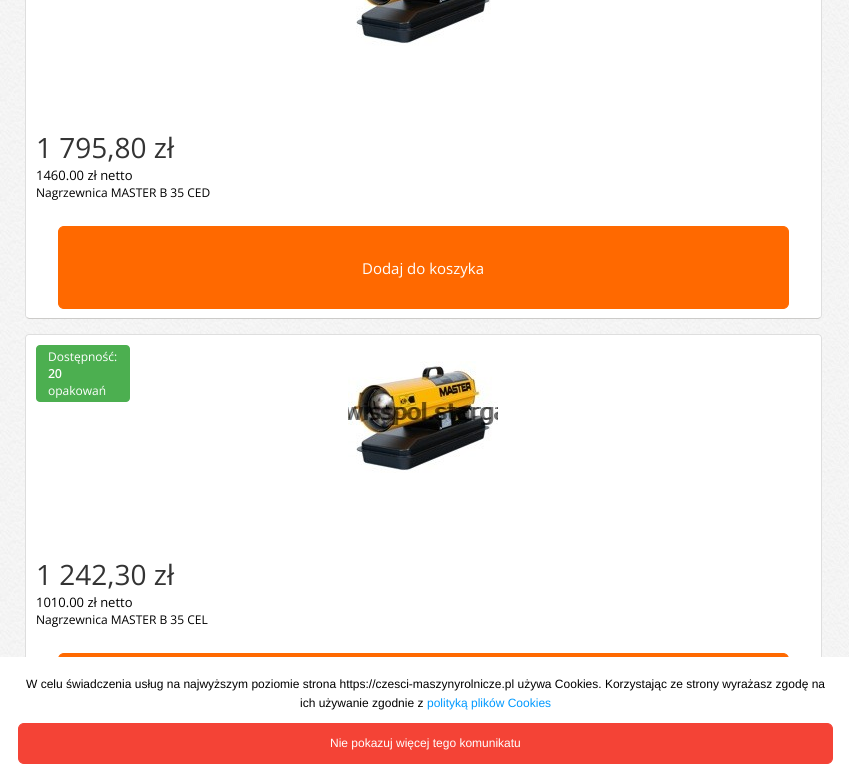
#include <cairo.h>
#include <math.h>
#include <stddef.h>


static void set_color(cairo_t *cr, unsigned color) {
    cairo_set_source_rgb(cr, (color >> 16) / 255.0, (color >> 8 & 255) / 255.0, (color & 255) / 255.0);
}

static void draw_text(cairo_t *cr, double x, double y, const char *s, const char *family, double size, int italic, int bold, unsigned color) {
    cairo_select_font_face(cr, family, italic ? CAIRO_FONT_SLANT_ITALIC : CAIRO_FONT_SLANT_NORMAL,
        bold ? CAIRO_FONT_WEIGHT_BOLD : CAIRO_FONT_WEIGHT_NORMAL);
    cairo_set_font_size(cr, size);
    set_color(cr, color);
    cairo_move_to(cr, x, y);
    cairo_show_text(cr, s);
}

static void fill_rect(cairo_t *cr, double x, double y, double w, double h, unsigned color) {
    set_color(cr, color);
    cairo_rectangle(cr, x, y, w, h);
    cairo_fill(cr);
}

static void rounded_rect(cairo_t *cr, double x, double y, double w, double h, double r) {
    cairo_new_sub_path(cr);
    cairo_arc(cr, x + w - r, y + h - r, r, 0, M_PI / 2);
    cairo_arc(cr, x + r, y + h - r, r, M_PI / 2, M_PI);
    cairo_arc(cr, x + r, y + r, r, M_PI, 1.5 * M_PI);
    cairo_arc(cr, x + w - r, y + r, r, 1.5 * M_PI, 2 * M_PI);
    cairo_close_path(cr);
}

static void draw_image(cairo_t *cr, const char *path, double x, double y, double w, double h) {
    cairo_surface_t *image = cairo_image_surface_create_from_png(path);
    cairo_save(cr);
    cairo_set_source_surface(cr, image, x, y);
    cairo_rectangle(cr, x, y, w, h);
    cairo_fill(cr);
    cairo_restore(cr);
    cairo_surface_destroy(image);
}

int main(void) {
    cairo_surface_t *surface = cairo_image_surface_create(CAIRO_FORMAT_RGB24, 849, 782);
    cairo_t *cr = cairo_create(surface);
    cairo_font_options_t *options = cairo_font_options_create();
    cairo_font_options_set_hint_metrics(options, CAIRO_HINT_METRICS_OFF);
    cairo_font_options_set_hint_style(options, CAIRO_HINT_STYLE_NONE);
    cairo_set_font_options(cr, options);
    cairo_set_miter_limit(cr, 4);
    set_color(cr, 0xFFFFFF);
    cairo_paint(cr);
    draw_image(cr, "assets/img1.png", 0, 0, 849, 657);
    set_color(cr, 0xFFFFFF);
    rounded_rect(cr, 25, -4, 797, 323, 4);
    cairo_fill(cr);
    cairo_new_path(cr);
    cairo_move_to(cr, 820.5, 317.5);
    cairo_line_to(cr, 818, 318.5);
    cairo_line_to(cr, 29, 318.5);
    cairo_line_to(cr, 26.5, 317.5);
    set_color(cr, 0xCCCBC9);
    cairo_set_line_width(cr, 1);
    cairo_stroke(cr);
    cairo_new_path(cr);
    cairo_move_to(cr, 26.5, 317.5);
    cairo_curve_to(cr, 26, 317, 25.5, 316, 25.5, 315);
    cairo_line_to(cr, 25.5, -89);
    cairo_curve_to(cr, 25.5, -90, 26, -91, 26.5, -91.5);
    cairo_curve_to(cr, 27, -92, 28, -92.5, 29, -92.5);
    cairo_line_to(cr, 818, -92.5);
    cairo_curve_to(cr, 819, -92.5, 820, -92, 820.5, -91.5);
    cairo_curve_to(cr, 821, -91, 821.5, -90, 821.5, -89);
    cairo_line_to(cr, 821.5, 315);
    cairo_curve_to(cr, 821.5, 316, 821, 317, 820.5, 317.5);
    set_color(cr, 0xDEDEDE);
    cairo_stroke(cr);
    draw_image(cr, "assets/img2.png", 356, 0, 135, 46);
    draw_text(cr, 36, 158, "1 795,80 zł", "Open Sans", 28, 0, 0, 0x333333);
    draw_text(cr, 36, 180, "1460.00 zł netto", "Open Sans", 13, 0, 0, 0x000000);
    draw_text(cr, 36, 197, "Nagrzewnica MASTER B 35 CED", "Open Sans", 12, 0, 0, 0x000000);
    set_color(cr, 0xFF6900);
    rounded_rect(cr, 58.5, 226.5, 730, 82, 5.5);
    cairo_fill_preserve(cr);
    cairo_stroke(cr);
    draw_text(cr, 362, 274, "Dodaj do koszyka", "Open Sans", 15, 0, 0, 0xFFFFFF);
    rounded_rect(cr, 25, 334, 797, 412, 4);
    cairo_fill(cr);
    cairo_new_path(cr);
    cairo_move_to(cr, 26.5, 744.5);
    cairo_curve_to(cr, 26, 744, 25.5, 743, 25.5, 742);
    cairo_line_to(cr, 25.5, 338);
    cairo_curve_to(cr, 25.5, 337, 26, 336, 26.5, 335.5);
    cairo_curve_to(cr, 27, 335, 28, 334.5, 29, 334.5);
    cairo_line_to(cr, 818, 334.5);
    cairo_curve_to(cr, 819, 334.5, 820, 335, 820.5, 335.5);
    cairo_curve_to(cr, 821, 336, 821.5, 337, 821.5, 338);
    cairo_line_to(cr, 821.5, 742);
    cairo_curve_to(cr, 821.5, 743, 821, 744, 820.5, 744.5);
    set_color(cr, 0xDEDEDE);
    cairo_stroke(cr);
    set_color(cr, 0x4CAF50);
    rounded_rect(cr, 36, 345, 94, 57, 4);
    cairo_fill(cr);
    draw_text(cr, 48, 361, "Dostępność:", "Open Sans", 12, 0, 0, 0xFFFFFF);
    draw_text(cr, 48, 378, "20", "Open Sans", 12, 0, 1, 0xFFFFFF);
    draw_text(cr, 48, 395, "opakowań", "Open Sans", 12, 0, 0, 0xFFFFFF);
    draw_text(cr, 36, 585, "1 242,30 zł", "Open Sans", 28, 0, 0, 0x333333);
    draw_text(cr, 36, 607, "1010.00 zł netto", "Open Sans", 13, 0, 0, 0x000000);
    draw_text(cr, 36, 624, "Nagrzewnica MASTER B 35 CEL", "Open Sans", 12, 0, 0, 0x000000);
    draw_image(cr, "assets/img3.png", 348, 361, 150, 112);
    set_color(cr, 0xFF6900);
    rounded_rect(cr, 58.5, 653.5, 730, 82, 5.5);
    cairo_fill_preserve(cr);
    cairo_stroke(cr);
    fill_rect(cr, 25, 657, 797, 88, 0xFFFFFF);
    draw_text(cr, 26, 688, "W celu świadczenia usług na najwyższym poziomie strona https://czesci-maszynyrolnicze.pl używa Cookies. Korzystając ze strony wyrażasz zgodę na", "Liberation Sans", 12, 0, 0, 0x000000);
    draw_text(cr, 300, 707, "ich używanie zgodnie z", "Liberation Sans", 12, 0, 0, 0x000000);
    draw_text(cr, 427, 707, "polityką plików Cookies", "Liberation Sans", 12, 0, 0, 0x0099FF);
    set_color(cr, 0xF44336);
    rounded_rect(cr, 18.5, 723.5, 814, 40, 5.5);
    cairo_fill_preserve(cr);
    cairo_stroke(cr);
    draw_text(cr, 330, 747, "Nie pokazuj więcej tego komunikatu", "Liberation Sans", 12, 0, 0, 0xFFFFFF);
    cairo_surface_write_to_png(surface, "output.png");
    cairo_font_options_destroy(options);
    cairo_destroy(cr);
    cairo_surface_destroy(surface);
    return 0;
}
